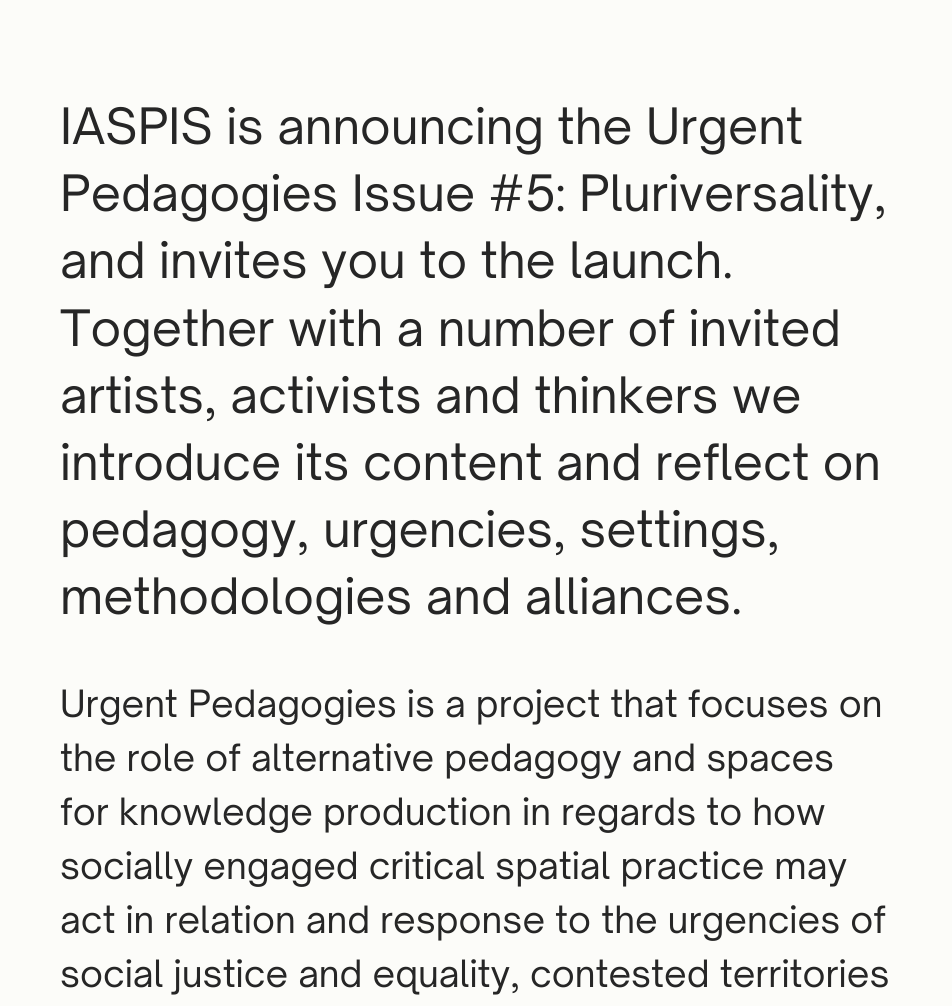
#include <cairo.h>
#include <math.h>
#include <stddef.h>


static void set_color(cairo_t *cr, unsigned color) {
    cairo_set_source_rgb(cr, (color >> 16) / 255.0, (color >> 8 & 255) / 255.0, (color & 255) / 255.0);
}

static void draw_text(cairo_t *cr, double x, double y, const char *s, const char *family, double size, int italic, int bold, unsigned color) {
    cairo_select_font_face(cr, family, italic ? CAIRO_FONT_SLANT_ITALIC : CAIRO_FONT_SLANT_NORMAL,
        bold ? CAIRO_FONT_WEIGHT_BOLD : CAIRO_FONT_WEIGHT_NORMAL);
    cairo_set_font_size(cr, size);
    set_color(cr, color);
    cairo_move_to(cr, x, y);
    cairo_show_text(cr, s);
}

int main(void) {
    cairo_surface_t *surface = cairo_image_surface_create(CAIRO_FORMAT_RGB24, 952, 1006);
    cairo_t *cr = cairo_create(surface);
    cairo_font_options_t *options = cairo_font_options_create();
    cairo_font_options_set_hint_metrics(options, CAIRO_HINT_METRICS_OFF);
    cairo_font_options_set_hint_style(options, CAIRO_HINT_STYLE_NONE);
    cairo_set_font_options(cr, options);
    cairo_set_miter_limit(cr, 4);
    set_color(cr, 0xFCFCF9);
    cairo_paint(cr);
    draw_text(cr, 60, 144, "IASPIS is announcing the Urgent", "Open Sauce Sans", 48, 0, 0, 0x262626);
    draw_text(cr, 60, 211, "Pedagogies Issue #5: Pluriversality,", "Open Sauce Sans", 48, 0, 0, 0x262626);
    draw_text(cr, 60, 278, "and invites you to the launch.", "Open Sauce Sans", 48, 0, 0, 0x262626);
    draw_text(cr, 60, 346, "Together with a number of invited", "Open Sauce Sans", 48, 0, 0, 0x262626);
    draw_text(cr, 60, 413, "artists, activists and thinkers we", "Open Sauce Sans", 48, 0, 0, 0x262626);
    draw_text(cr, 60, 480, "introduce its content and reflect on", "Open Sauce Sans", 48, 0, 0, 0x262626);
    draw_text(cr, 60, 547, "pedagogy, urgencies, settings,", "Open Sauce Sans", 48, 0, 0, 0x262626);
    draw_text(cr, 60, 614, "methodologies and alliances.", "Open Sauce Sans", 48, 0, 0, 0x262626);
    draw_text(cr, 60, 717, "Urgent Pedagogies is a project that focuses on", "Open Sauce Sans", 36, 0, 0, 0x262626);
    draw_text(cr, 60, 771, "the role of alternative pedagogy and spaces", "Open Sauce Sans", 36, 0, 0, 0x262626);
    draw_text(cr, 60, 825, "for knowledge production in regards to how", "Open Sauce Sans", 36, 0, 0, 0x262626);
    draw_text(cr, 60, 879, "socially engaged critical spatial practice may", "Open Sauce Sans", 36, 0, 0, 0x262626);
    draw_text(cr, 60, 933, "act in relation and response to the urgencies of", "Open Sauce Sans", 36, 0, 0, 0x262626);
    draw_text(cr, 60, 987, "social justice and equality, contested territories", "Open Sauce Sans", 36, 0, 0, 0x262626);
    cairo_surface_write_to_png(surface, "output.png");
    cairo_font_options_destroy(options);
    cairo_destroy(cr);
    cairo_surface_destroy(surface);
    return 0;
}
